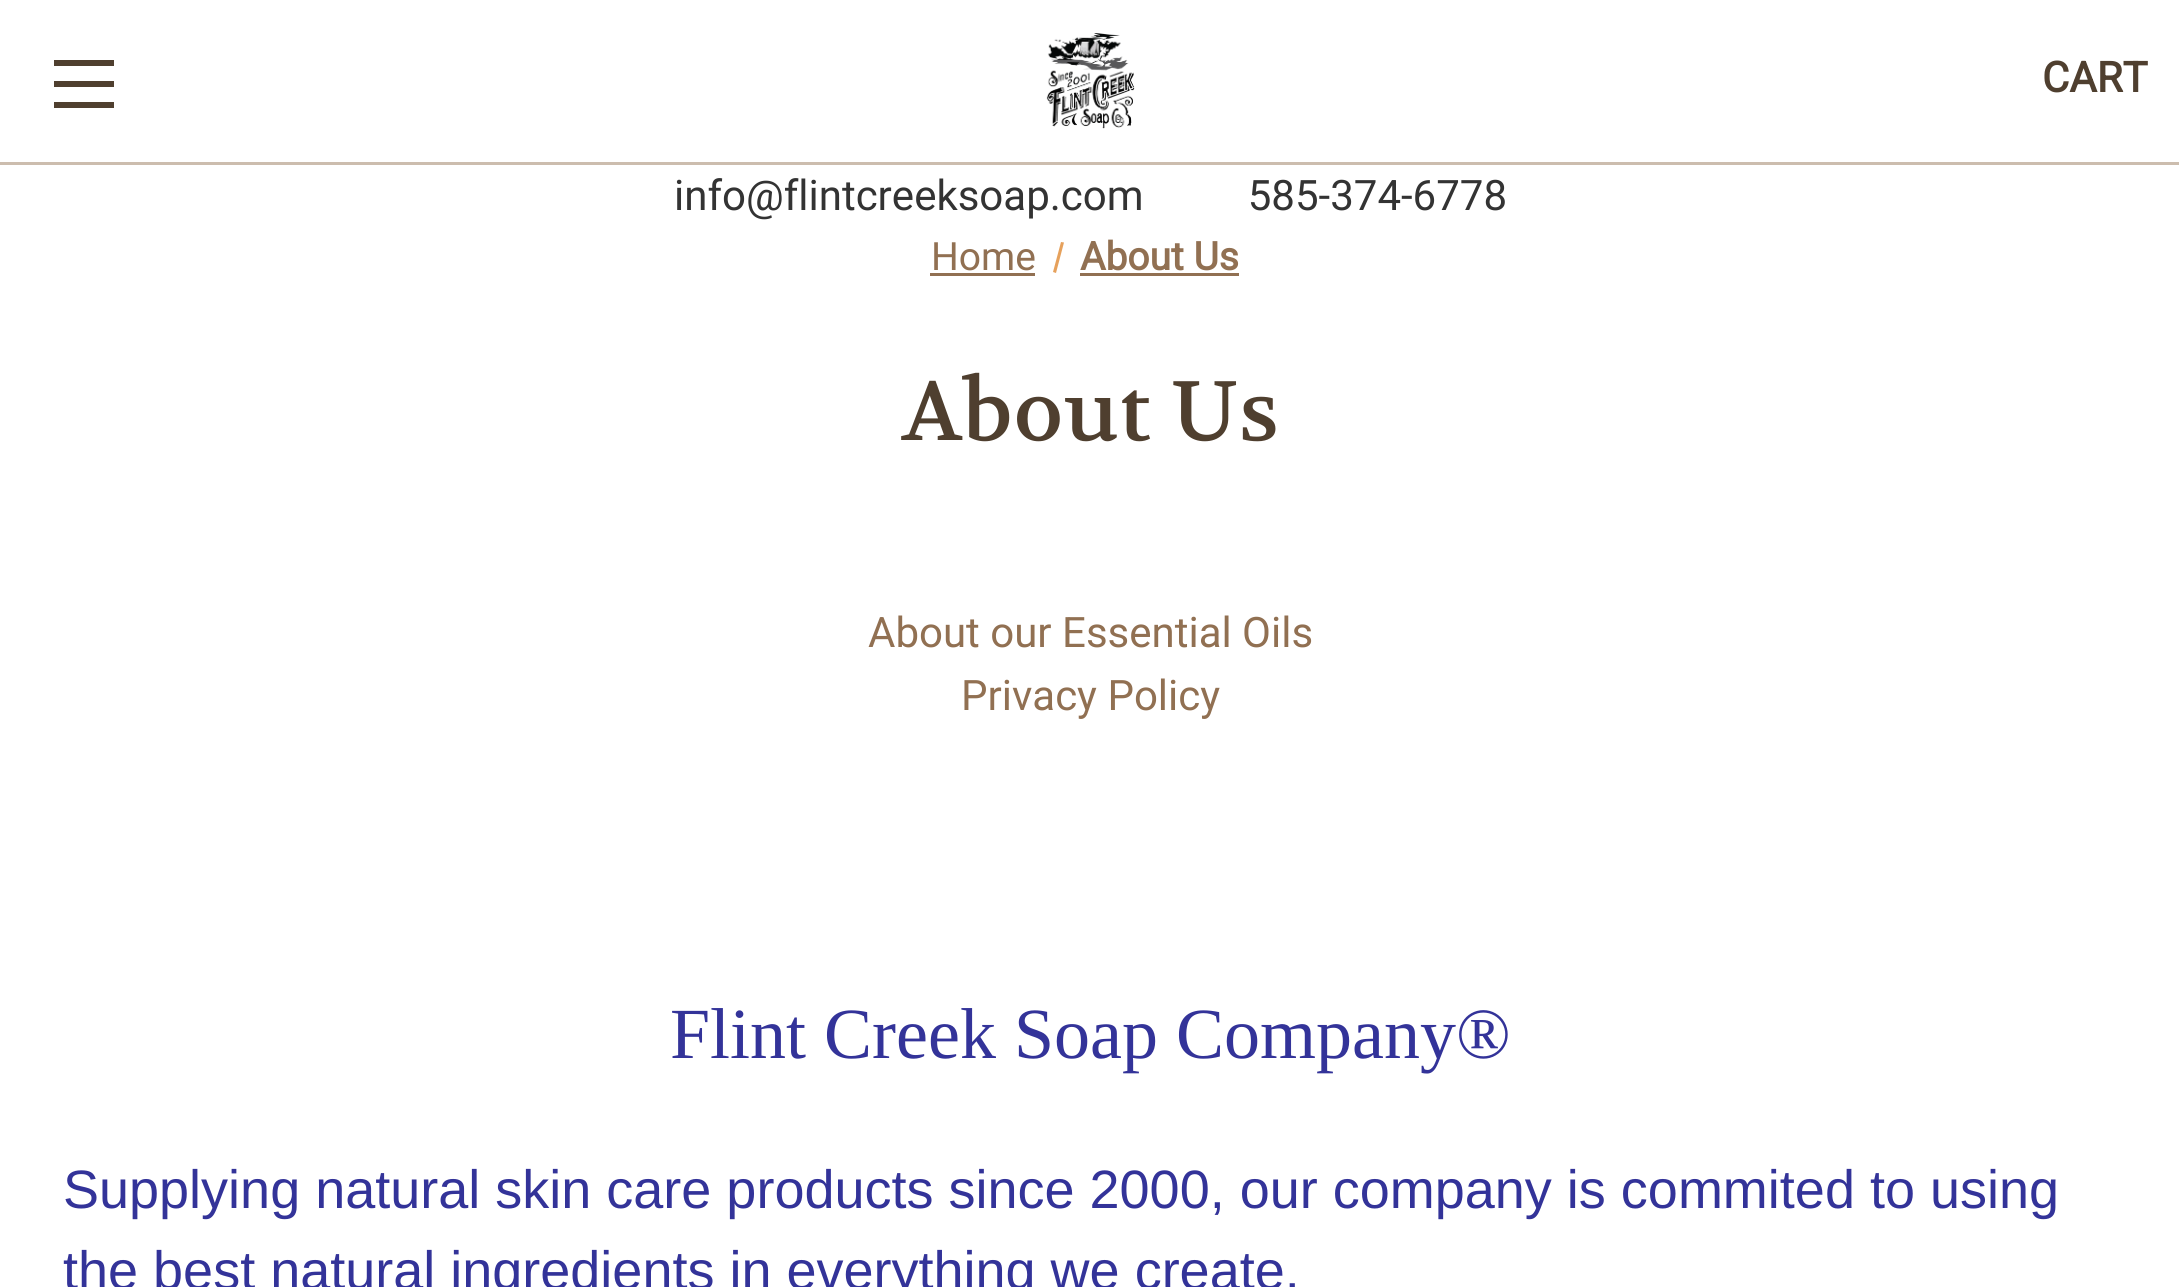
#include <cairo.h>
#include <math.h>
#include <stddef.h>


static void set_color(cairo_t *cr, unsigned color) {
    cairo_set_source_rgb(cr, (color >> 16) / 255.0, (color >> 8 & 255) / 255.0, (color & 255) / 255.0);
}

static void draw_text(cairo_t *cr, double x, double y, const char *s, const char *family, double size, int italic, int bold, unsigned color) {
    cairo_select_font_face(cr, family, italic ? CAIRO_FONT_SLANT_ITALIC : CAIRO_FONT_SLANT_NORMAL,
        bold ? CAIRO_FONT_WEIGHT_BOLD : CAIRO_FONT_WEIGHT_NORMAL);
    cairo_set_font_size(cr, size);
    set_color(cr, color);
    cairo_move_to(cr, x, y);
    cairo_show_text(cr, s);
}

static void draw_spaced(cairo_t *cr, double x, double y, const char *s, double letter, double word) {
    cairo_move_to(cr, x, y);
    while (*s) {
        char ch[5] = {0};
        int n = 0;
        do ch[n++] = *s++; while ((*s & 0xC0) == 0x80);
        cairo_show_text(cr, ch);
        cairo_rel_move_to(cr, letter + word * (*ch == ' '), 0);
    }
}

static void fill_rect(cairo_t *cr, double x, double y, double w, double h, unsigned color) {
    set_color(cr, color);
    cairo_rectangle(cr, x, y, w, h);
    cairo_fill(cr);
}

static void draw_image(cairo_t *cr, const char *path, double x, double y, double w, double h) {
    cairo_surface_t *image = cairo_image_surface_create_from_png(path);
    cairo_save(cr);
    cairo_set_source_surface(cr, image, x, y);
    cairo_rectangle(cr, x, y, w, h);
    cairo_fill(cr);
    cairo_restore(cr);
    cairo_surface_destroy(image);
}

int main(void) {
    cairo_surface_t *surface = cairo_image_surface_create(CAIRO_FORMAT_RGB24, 2179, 1287);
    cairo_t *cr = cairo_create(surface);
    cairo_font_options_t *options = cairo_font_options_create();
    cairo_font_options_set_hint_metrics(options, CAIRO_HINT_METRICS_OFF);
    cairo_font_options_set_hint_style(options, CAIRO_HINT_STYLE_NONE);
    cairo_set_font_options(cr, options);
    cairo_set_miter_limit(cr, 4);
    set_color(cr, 0xFFFFFF);
    cairo_paint(cr);
    fill_rect(cr, 0, 162, 2179, 3, 0xCCBDAE);
    fill_rect(cr, 54, 81, 60, 6, 0x4F3F2F);
    fill_rect(cr, 54, 60, 60, 6, 0x4F3F2F);
    fill_rect(cr, 54, 102, 60, 6, 0x4F3F2F);
    draw_image(cr, "assets/img1.png", 1046, 33, 89, 96);
    draw_text(cr, 2042, 92, "CART", "Roboto", 42, 0, 1, 0x4F3F2F);
    draw_text(cr, 674, 210, "info@flintcreeksoap.com          585-374-6778", "Roboto", 42, 0, 0, 0x333333);
    draw_text(cr, 931, 270, "Home", "Roboto", 39, 0, 0, 0x917052);
    fill_rect(cr, 930, 273, 105, 3, 0x917052);
    set_color(cr, 0xE6A15C);
    cairo_new_path(cr);
    cairo_move_to(cr, 1061, 242);
    cairo_line_to(cr, 1064, 242.5);
    cairo_line_to(cr, 1056, 273);
    cairo_line_to(cr, 1053, 272);
    cairo_close_path(cr);
    cairo_fill(cr);
    draw_text(cr, 1080, 270, "About Us", "Roboto", 39, 0, 1, 0x917052);
    fill_rect(cr, 1080, 273, 159, 3, 0x917052);
    cairo_select_font_face(cr, "Volkhov", CAIRO_FONT_SLANT_NORMAL, CAIRO_FONT_WEIGHT_NORMAL);
    cairo_set_font_size(cr, 84);
    set_color(cr, 0x4F3F2F);
    draw_spaced(cr, 902, 440, "About Us", 0.75, 0);
    draw_text(cr, 868, 647, "About our Essential Oils", "Roboto", 42, 0, 0, 0x917052);
    draw_text(cr, 961, 710, "Privacy Policy", "Roboto", 42, 0, 0, 0x917052);
    draw_text(cr, 670, 1058, "Flint Creek Soap Company®", "Liberation Serif", 72, 0, 0, 0x333399);
    draw_text(cr, 63, 1208, "Supplying natural skin care products since 2000, our company is commited to using", "Liberation Sans", 54, 0, 0, 0x333399);
    draw_text(cr, 63, 1289, "the best natural ingredients in everything we create.", "Liberation Sans", 54, 0, 0, 0x333399);
    cairo_surface_write_to_png(surface, "output.png");
    cairo_font_options_destroy(options);
    cairo_destroy(cr);
    cairo_surface_destroy(surface);
    return 0;
}
